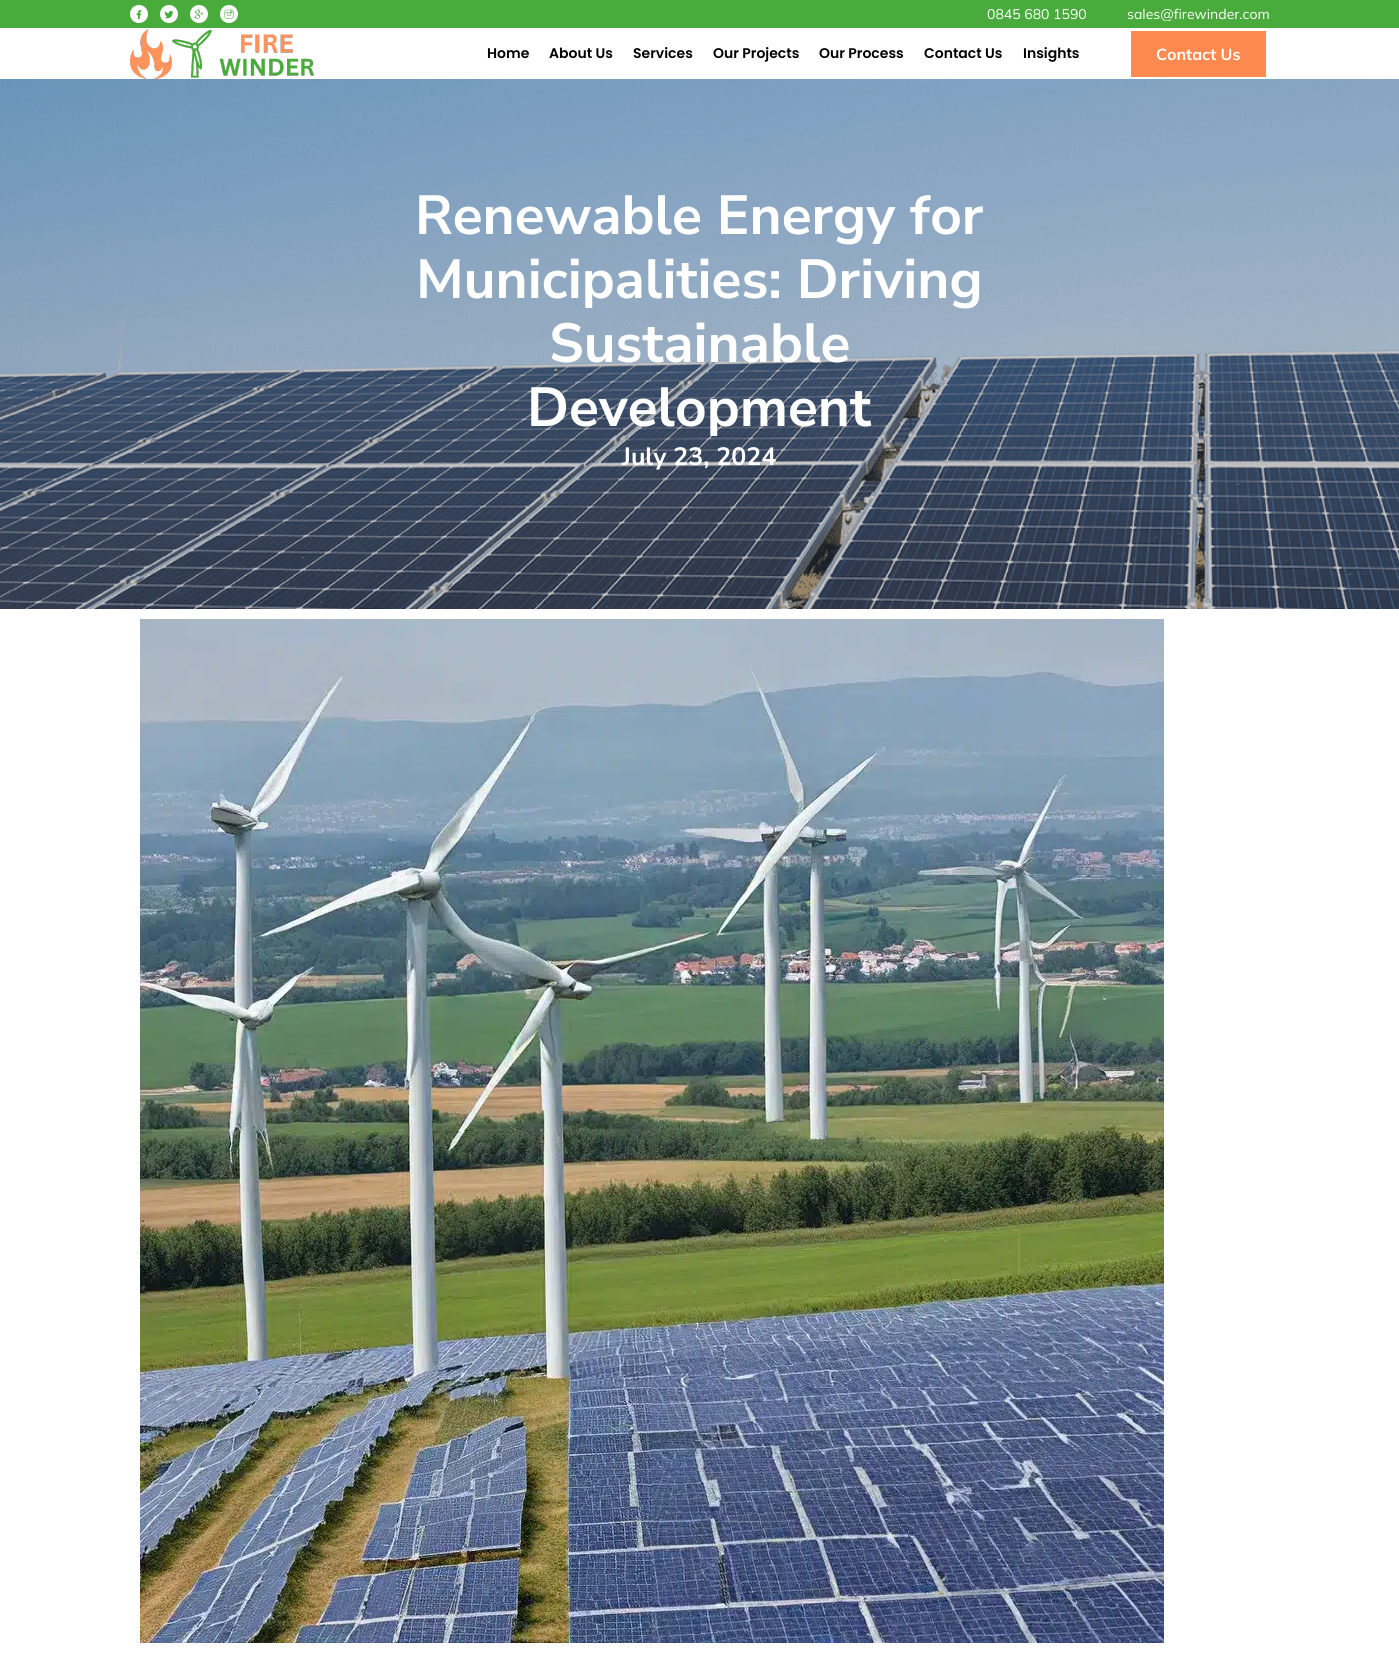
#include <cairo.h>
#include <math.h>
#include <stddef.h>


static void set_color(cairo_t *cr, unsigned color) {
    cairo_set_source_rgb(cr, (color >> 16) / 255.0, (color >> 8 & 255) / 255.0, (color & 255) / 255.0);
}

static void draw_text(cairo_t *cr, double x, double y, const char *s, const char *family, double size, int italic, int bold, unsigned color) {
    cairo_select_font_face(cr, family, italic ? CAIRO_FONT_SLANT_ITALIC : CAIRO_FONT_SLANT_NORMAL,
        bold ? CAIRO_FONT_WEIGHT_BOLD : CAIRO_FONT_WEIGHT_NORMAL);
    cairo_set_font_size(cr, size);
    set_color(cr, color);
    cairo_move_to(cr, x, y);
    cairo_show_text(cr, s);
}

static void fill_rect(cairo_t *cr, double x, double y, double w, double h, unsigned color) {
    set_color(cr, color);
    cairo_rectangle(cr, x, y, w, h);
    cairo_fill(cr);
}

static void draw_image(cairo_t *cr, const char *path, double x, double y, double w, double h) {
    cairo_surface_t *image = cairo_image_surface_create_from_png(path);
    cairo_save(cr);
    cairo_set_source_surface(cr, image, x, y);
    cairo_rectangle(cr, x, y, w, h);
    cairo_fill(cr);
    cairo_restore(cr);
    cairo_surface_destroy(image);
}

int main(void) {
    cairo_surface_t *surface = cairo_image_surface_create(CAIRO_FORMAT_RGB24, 1399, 1668);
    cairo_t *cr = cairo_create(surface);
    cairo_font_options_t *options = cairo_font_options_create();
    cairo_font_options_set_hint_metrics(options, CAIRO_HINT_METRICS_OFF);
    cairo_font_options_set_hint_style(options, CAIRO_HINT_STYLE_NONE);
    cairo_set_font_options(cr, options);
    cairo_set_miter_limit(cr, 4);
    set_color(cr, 0xFFFFFF);
    cairo_paint(cr);
    fill_rect(cr, 0, 0, 1399, 28, 0x49AB3C);
    set_color(cr, 0xFFFFFF);
    cairo_arc(cr, 139, 14, 9, 0, 2 * M_PI);
    cairo_fill(cr);
    draw_image(cr, "assets/img1.png", 136, 10, 6, 10);
    cairo_arc(cr, 169, 14, 9, 0, 2 * M_PI);
    cairo_fill(cr);
    draw_image(cr, "assets/img2.png", 164, 11, 10, 8);
    cairo_arc(cr, 199, 14, 9, 0, 2 * M_PI);
    cairo_fill(cr);
    draw_image(cr, "assets/img3.png", 194, 9, 10, 10);
    cairo_arc(cr, 229, 14, 9, 0, 2 * M_PI);
    cairo_fill(cr);
    draw_image(cr, "assets/img4.png", 224, 9, 10, 10);
    draw_text(cr, 987, 19, "0845 680 1590", "Mulish", 14, 0, 0, 0xFFFFFF);
    cairo_save(cr);
    cairo_rectangle(cr, 1087, 7, 182, 14);
    cairo_clip(cr);
    draw_text(cr, 1127, 19, "sales@firewinder.com", "Mulish", 14, 0, 0, 0xFFFFFF);
    cairo_restore(cr);
    draw_image(cr, "assets/img5.png", 130, 29, 184, 50);
    draw_text(cr, 487, 58, "Home", "Poppins SemiBold", 14, 0, 0, 0x000000);
    draw_text(cr, 549, 58, "About Us", "Poppins SemiBold", 14, 0, 0, 0x000000);
    draw_text(cr, 633, 58, "Services", "Poppins SemiBold", 14, 0, 0, 0x000000);
    draw_text(cr, 713, 58, "Our Projects", "Poppins SemiBold", 14, 0, 0, 0x000000);
    draw_text(cr, 819, 58, "Our Process", "Poppins SemiBold", 14, 0, 0, 0x000000);
    draw_text(cr, 924, 58, "Contact Us", "Poppins SemiBold", 14, 0, 0, 0x000000);
    draw_text(cr, 1023, 58, "Insights", "Poppins SemiBold", 14, 0, 0, 0x000000);
    fill_rect(cr, 1131, 31, 135, 46, 0xFF894E);
    draw_text(cr, 1156, 60, "Contact Us", "Mulish", 16, 0, 1, 0xFFFFFF);
    draw_image(cr, "assets/img6.png", 0, 79, 1399, 530);
    draw_text(cr, 415, 234, "Renewable Energy for", "Nunito Sans", 55, 0, 1, 0xFFFFFF);
    draw_text(cr, 416, 298, "Municipalities: Driving", "Nunito Sans", 55, 0, 1, 0xFFFFFF);
    draw_text(cr, 549, 362, "Sustainable", "Nunito Sans", 55, 0, 1, 0xFFFFFF);
    draw_text(cr, 527, 426, "Development", "Nunito Sans", 55, 0, 1, 0xFFFFFF);
    draw_text(cr, 622, 465, "July 23, 2024", "Nunito Sans", 25, 0, 1, 0xFFFFFF);
    draw_image(cr, "assets/img7.png", 140, 619, 1024, 1024);
    cairo_surface_write_to_png(surface, "output.png");
    cairo_font_options_destroy(options);
    cairo_destroy(cr);
    cairo_surface_destroy(surface);
    return 0;
}
